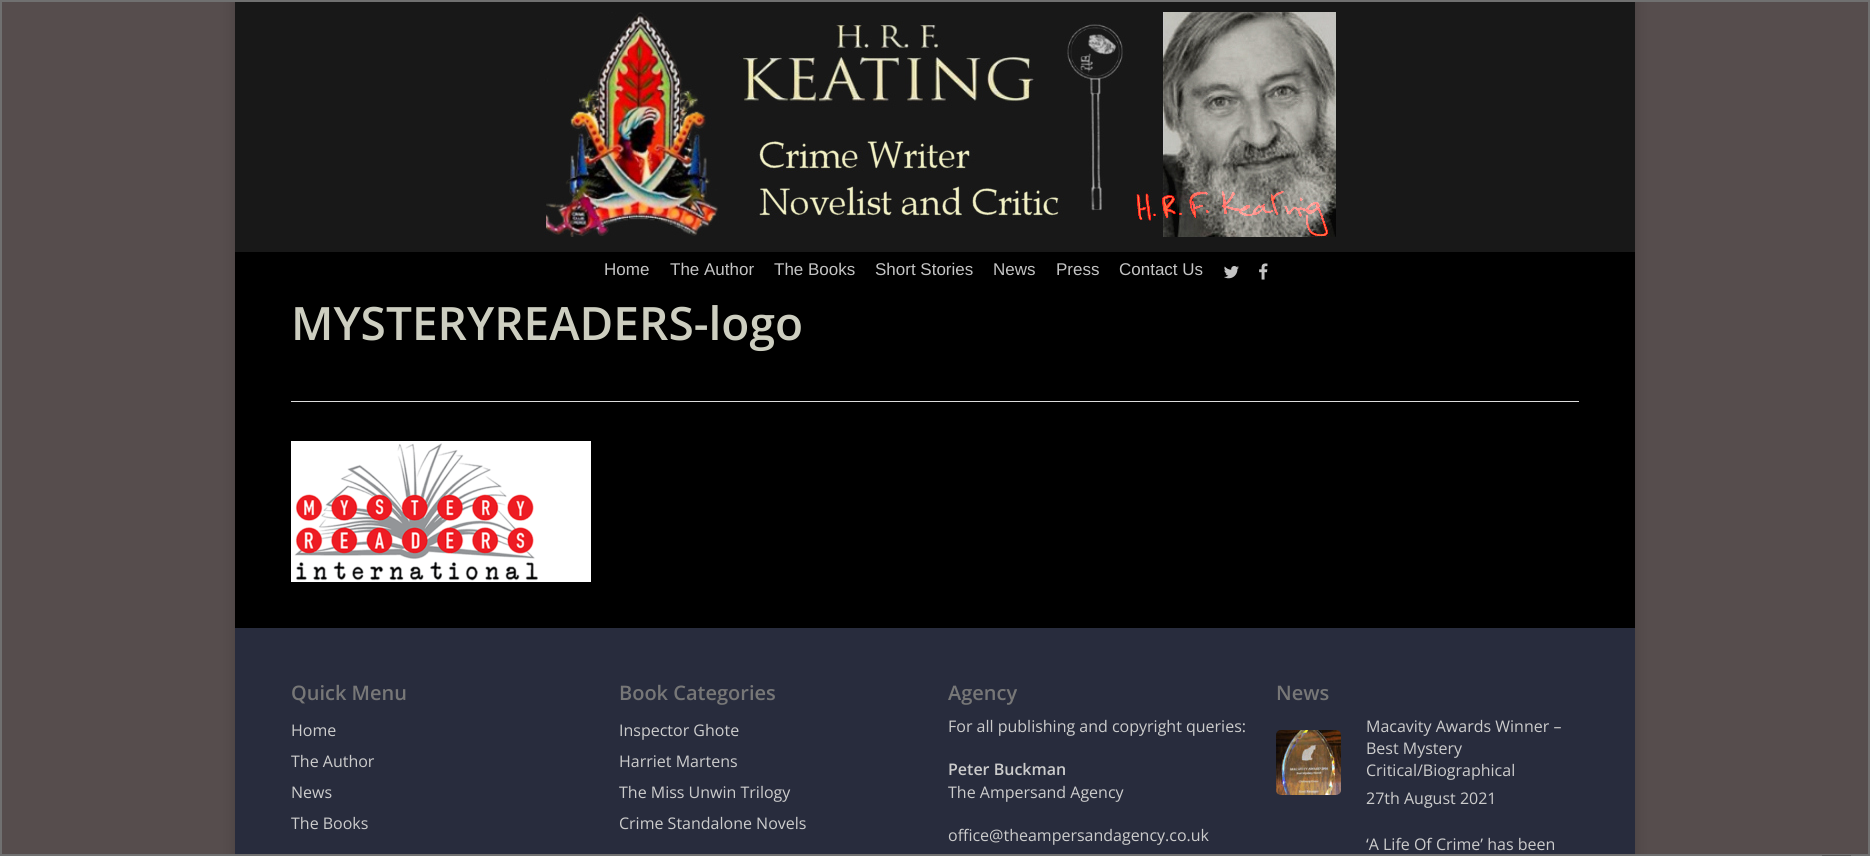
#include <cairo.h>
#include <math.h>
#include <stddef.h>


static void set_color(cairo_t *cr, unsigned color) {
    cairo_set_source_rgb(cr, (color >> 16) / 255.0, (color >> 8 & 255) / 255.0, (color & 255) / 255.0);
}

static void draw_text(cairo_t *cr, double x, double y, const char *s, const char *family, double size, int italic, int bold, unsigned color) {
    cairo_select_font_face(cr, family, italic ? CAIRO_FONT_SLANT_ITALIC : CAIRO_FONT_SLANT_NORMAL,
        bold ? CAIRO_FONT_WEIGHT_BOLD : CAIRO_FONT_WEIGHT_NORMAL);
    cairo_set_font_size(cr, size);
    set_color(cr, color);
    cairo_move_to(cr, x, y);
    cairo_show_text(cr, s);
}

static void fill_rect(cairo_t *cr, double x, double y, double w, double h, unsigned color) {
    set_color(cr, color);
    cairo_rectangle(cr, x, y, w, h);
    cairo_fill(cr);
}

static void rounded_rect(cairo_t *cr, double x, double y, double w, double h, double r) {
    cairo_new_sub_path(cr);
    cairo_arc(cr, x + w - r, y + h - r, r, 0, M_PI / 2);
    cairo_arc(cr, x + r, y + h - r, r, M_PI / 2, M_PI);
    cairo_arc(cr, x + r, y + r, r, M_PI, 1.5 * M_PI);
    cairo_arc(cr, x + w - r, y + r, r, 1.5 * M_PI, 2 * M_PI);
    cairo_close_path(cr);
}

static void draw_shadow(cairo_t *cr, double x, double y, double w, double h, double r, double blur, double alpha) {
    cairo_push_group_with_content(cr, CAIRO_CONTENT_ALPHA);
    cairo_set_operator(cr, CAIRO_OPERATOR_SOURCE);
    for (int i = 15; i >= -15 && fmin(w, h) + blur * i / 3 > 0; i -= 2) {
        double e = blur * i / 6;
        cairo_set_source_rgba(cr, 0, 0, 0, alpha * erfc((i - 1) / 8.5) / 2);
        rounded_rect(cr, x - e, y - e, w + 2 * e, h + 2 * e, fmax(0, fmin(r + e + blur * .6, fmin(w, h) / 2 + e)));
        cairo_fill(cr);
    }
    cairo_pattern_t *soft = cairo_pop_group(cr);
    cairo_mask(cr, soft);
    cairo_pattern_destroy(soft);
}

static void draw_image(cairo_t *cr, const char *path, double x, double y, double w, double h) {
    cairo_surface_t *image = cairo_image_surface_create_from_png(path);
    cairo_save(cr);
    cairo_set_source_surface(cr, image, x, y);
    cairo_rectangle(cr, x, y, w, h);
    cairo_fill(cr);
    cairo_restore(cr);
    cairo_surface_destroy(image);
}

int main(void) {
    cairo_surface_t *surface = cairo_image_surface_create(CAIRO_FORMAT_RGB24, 1870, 856);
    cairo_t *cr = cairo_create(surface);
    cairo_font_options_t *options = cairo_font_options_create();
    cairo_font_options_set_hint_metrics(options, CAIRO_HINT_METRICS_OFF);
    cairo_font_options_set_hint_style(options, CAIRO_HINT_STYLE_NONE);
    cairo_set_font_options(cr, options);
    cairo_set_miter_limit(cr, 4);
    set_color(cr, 0x564D4D);
    cairo_paint(cr);
    set_color(cr, 0x000000);
    draw_shadow(cr, 235, 0, 1400, 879, 0, 7.5, 0.15);
    fill_rect(cr, 0, 0, 1870, 2, 0x707070);
    fill_rect(cr, 1868, 0, 2, 856, 0x707070);
    fill_rect(cr, 0, 854, 1870, 2, 0x707070);
    fill_rect(cr, 0, 0, 2, 856, 0x707070);
    fill_rect(cr, 235, 2, 1400, 250, 0x181818);
    draw_image(cr, "assets/img1.png", 544, 12, 792, 225);
    fill_rect(cr, 235, 252, 1400, 376, 0x000000);
    draw_text(cr, 604, 275, "Home", "Liberation Sans", 17, 0, 0, 0xC4C4C4);
    draw_text(cr, 670, 275, "The Author", "Liberation Sans", 17, 0, 0, 0xC4C4C4);
    draw_text(cr, 774, 275, "The Books", "Liberation Sans", 17, 0, 0, 0xC4C4C4);
    draw_text(cr, 875, 275, "Short Stories", "Liberation Sans", 17, 0, 0, 0xC4C4C4);
    draw_text(cr, 993, 275, "News", "Liberation Sans", 17, 0, 0, 0xC4C4C4);
    draw_text(cr, 1056, 275, "Press", "Liberation Sans", 17, 0, 0, 0xC4C4C4);
    draw_text(cr, 1119, 275, "Contact Us", "Liberation Sans", 17, 0, 0, 0xC4C4C4);
    draw_image(cr, "assets/img2.png", 1224, 266, 15, 13);
    draw_image(cr, "assets/img3.png", 1259, 263, 9, 17);
    fill_rect(cr, 291, 401, 1288, 1, 0xDDDDDD);
    draw_text(cr, 291, 340, "MYSTERYREADERS-logo", "Open Sans SemiBold", 46, 0, 0, 0xCDCEC0);
    draw_image(cr, "assets/img4.png", 291, 441, 300, 141);
    fill_rect(cr, 235, 628, 1400, 226, 0x282C3D);
    draw_text(cr, 291, 700, "Quick Menu", "Open Sans SemiBold", 20, 0, 0, 0x777777);
    draw_text(cr, 291, 736, "Home", "Open Sans", 16, 0, 0, 0xCCCCCC);
    draw_text(cr, 291, 767, "The Author", "Open Sans", 16, 0, 0, 0xCCCCCC);
    draw_text(cr, 291, 798, "News", "Open Sans", 16, 0, 0, 0xCCCCCC);
    draw_text(cr, 291, 829, "The Books", "Open Sans", 16, 0, 0, 0xCCCCCC);
    draw_text(cr, 619, 700, "Book Categories", "Open Sans SemiBold", 20, 0, 0, 0x777777);
    draw_text(cr, 619, 736, "Inspector Ghote", "Open Sans", 16, 0, 0, 0xCCCCCC);
    draw_text(cr, 619, 767, "Harriet Martens", "Open Sans", 16, 0, 0, 0xCCCCCC);
    draw_text(cr, 619, 798, "The Miss Unwin Trilogy", "Open Sans", 16, 0, 0, 0xCCCCCC);
    draw_text(cr, 619, 829, "Crime Standalone Novels", "Open Sans", 16, 0, 0, 0xCCCCCC);
    draw_text(cr, 948, 700, "Agency", "Open Sans SemiBold", 20, 0, 0, 0x777777);
    draw_text(cr, 948, 732, "For all publishing and copyright queries:", "Open Sans", 16, 0, 0, 0xCCCCCC);
    draw_text(cr, 948, 775, "Peter Buckman", "Open Sans SemiBold", 16, 0, 0, 0xCCCCCC);
    draw_text(cr, 948, 798, "The Ampersand Agency", "Open Sans", 16, 0, 0, 0xCCCCCC);
    draw_text(cr, 948, 841, "office@theampersandagency.co.uk", "Open Sans", 16, 0, 0, 0xCCCCCC);
    draw_text(cr, 1276, 700, "News", "Open Sans SemiBold", 20, 0, 0, 0x777777);
    draw_image(cr, "assets/img5.png", 1276, 730, 65, 65);
    draw_text(cr, 1366, 732, "Macavity Awards Winner –", "Open Sans", 16, 0, 0, 0xCCCCCC);
    draw_text(cr, 1366, 754, "Best Mystery", "Open Sans", 16, 0, 0, 0xCCCCCC);
    draw_text(cr, 1366, 776, "Critical/Biographical", "Open Sans", 16, 0, 0, 0xCCCCCC);
    draw_text(cr, 1366, 804, "27th August 2021", "Open Sans", 16, 0, 0, 0xCCCCCC);
    draw_text(cr, 1366, 850, "‘A Life Of Crime’ has been", "Open Sans", 16, 0, 0, 0xCCCCCC);
    fill_rect(cr, 1822, 855, 29, 1, 0x545454);
    cairo_surface_write_to_png(surface, "output.png");
    cairo_font_options_destroy(options);
    cairo_destroy(cr);
    cairo_surface_destroy(surface);
    return 0;
}
